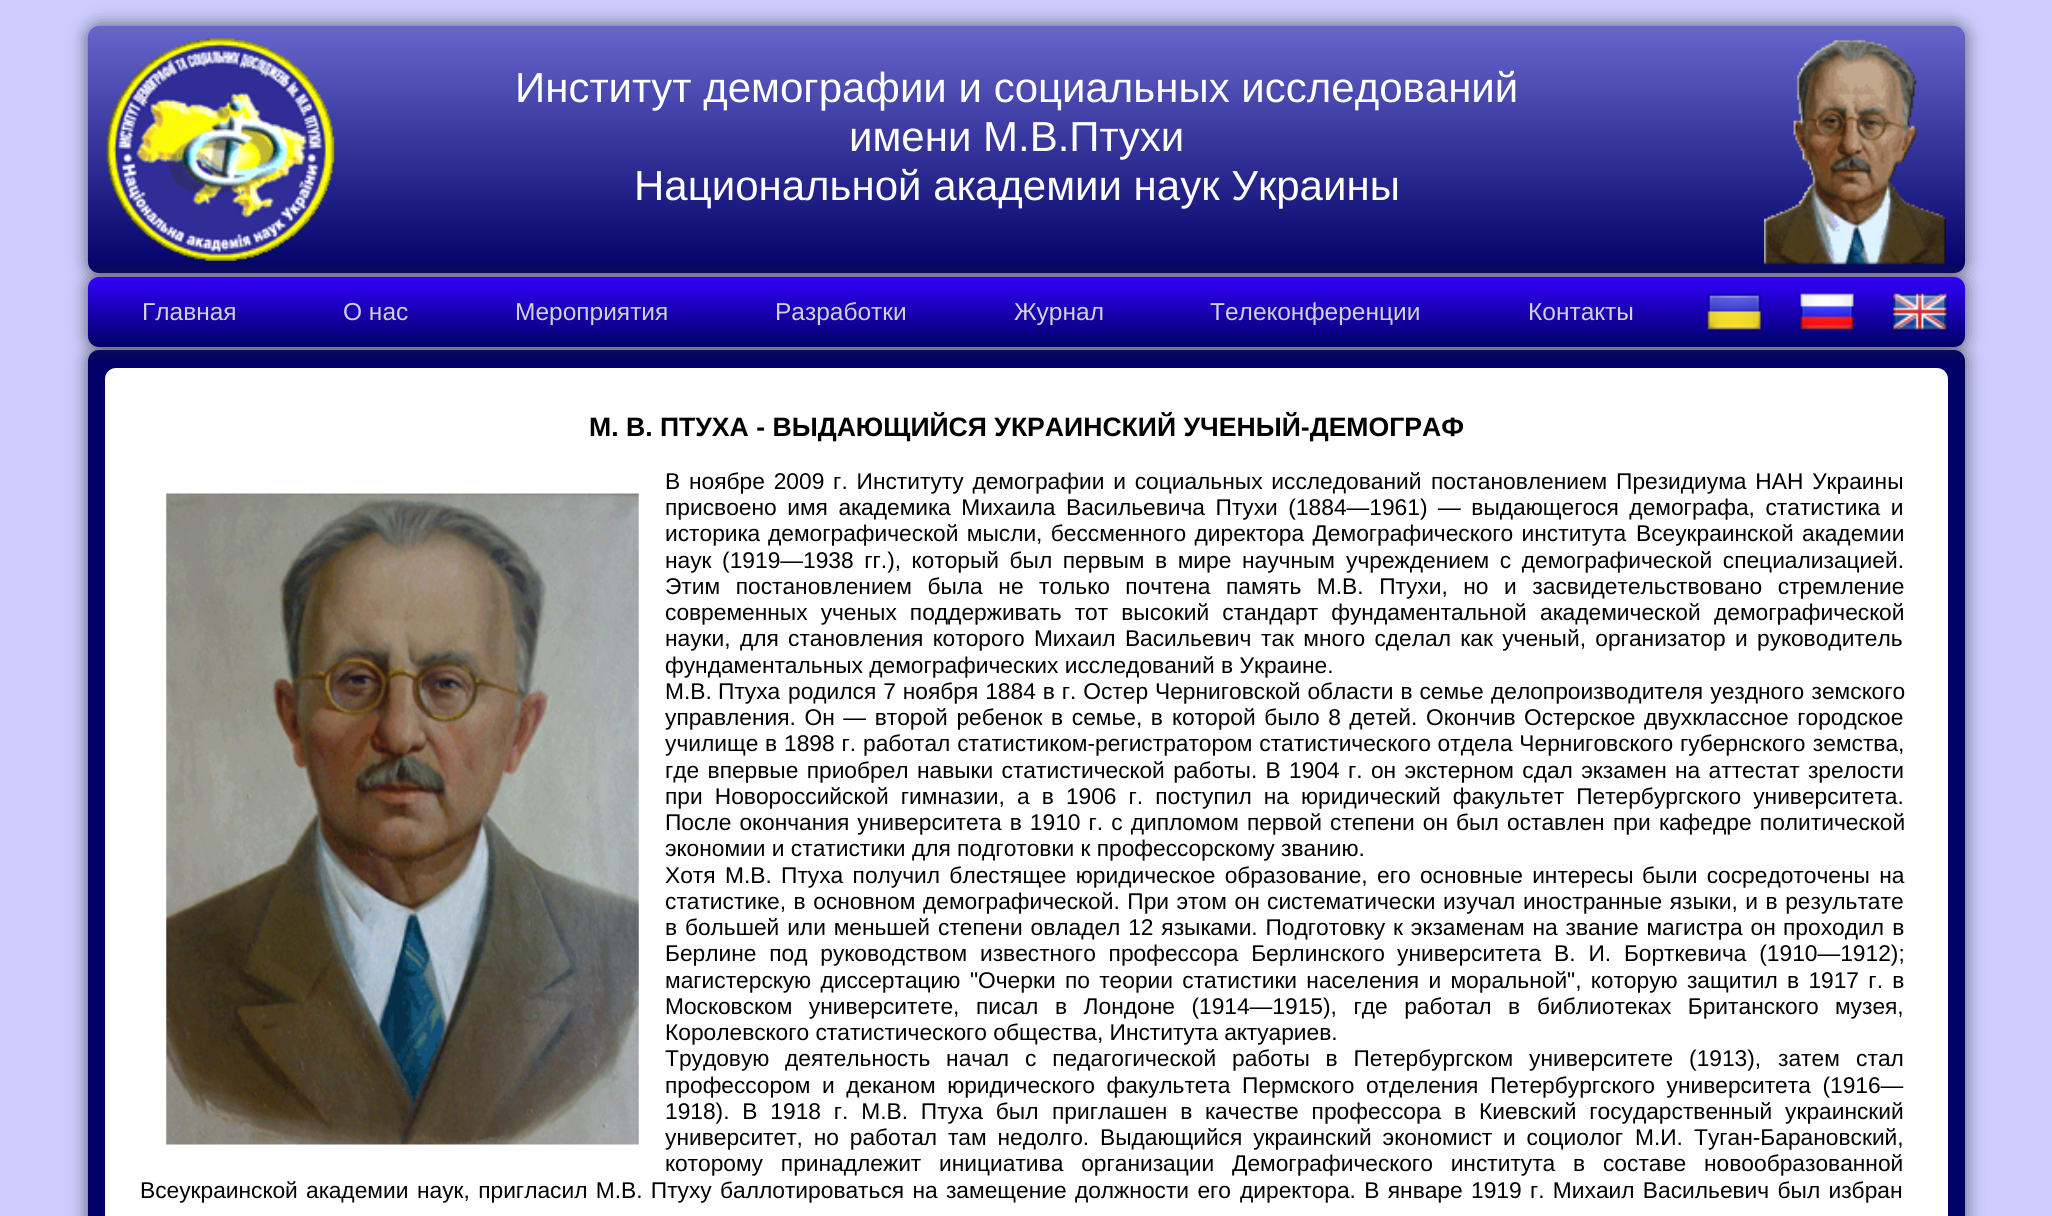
#include <cairo.h>
#include <math.h>
#include <stddef.h>


static void set_color(cairo_t *cr, unsigned color) {
    cairo_set_source_rgb(cr, (color >> 16) / 255.0, (color >> 8 & 255) / 255.0, (color & 255) / 255.0);
}

static void draw_text(cairo_t *cr, double x, double y, const char *s, const char *family, double size, int italic, int bold, unsigned color) {
    cairo_select_font_face(cr, family, italic ? CAIRO_FONT_SLANT_ITALIC : CAIRO_FONT_SLANT_NORMAL,
        bold ? CAIRO_FONT_WEIGHT_BOLD : CAIRO_FONT_WEIGHT_NORMAL);
    cairo_set_font_size(cr, size);
    set_color(cr, color);
    cairo_move_to(cr, x, y);
    cairo_show_text(cr, s);
}

static void draw_spaced(cairo_t *cr, double x, double y, const char *s, double letter, double word) {
    cairo_move_to(cr, x, y);
    while (*s) {
        char ch[5] = {0};
        int n = 0;
        do ch[n++] = *s++; while ((*s & 0xC0) == 0x80);
        cairo_show_text(cr, ch);
        cairo_rel_move_to(cr, letter + word * (*ch == ' '), 0);
    }
}

static void rounded_rect(cairo_t *cr, double x, double y, double w, double h, double r) {
    cairo_new_sub_path(cr);
    cairo_arc(cr, x + w - r, y + h - r, r, 0, M_PI / 2);
    cairo_arc(cr, x + r, y + h - r, r, M_PI / 2, M_PI);
    cairo_arc(cr, x + r, y + r, r, M_PI, 1.5 * M_PI);
    cairo_arc(cr, x + w - r, y + r, r, 1.5 * M_PI, 2 * M_PI);
    cairo_close_path(cr);
}

static void draw_shadow(cairo_t *cr, double x, double y, double w, double h, double r, double blur, double alpha) {
    cairo_push_group_with_content(cr, CAIRO_CONTENT_ALPHA);
    cairo_set_operator(cr, CAIRO_OPERATOR_SOURCE);
    for (int i = 15; i >= -15 && fmin(w, h) + blur * i / 3 > 0; i -= 2) {
        double e = blur * i / 6;
        cairo_set_source_rgba(cr, 0, 0, 0, alpha * erfc((i - 1) / 8.5) / 2);
        rounded_rect(cr, x - e, y - e, w + 2 * e, h + 2 * e, fmax(0, fmin(r + e + blur * .6, fmin(w, h) / 2 + e)));
        cairo_fill(cr);
    }
    cairo_pattern_t *soft = cairo_pop_group(cr);
    cairo_mask(cr, soft);
    cairo_pattern_destroy(soft);
}

static void draw_image(cairo_t *cr, const char *path, double x, double y, double w, double h) {
    cairo_surface_t *image = cairo_image_surface_create_from_png(path);
    cairo_save(cr);
    cairo_set_source_surface(cr, image, x, y);
    cairo_rectangle(cr, x, y, w, h);
    cairo_fill(cr);
    cairo_restore(cr);
    cairo_surface_destroy(image);
}

int main(void) {
    cairo_surface_t *surface = cairo_image_surface_create(CAIRO_FORMAT_RGB24, 2052, 1216);
    cairo_t *cr = cairo_create(surface);
    cairo_font_options_t *options = cairo_font_options_create();
    cairo_font_options_set_hint_metrics(options, CAIRO_HINT_METRICS_OFF);
    cairo_font_options_set_hint_style(options, CAIRO_HINT_STYLE_NONE);
    cairo_set_font_options(cr, options);
    cairo_set_miter_limit(cr, 4);
    cairo_pattern_t *gradient;
    set_color(cr, 0xCCCCFF);
    cairo_paint(cr);
    set_color(cr, 0x323232);
    draw_shadow(cr, 88, 26, 1877, 247, 11, 9, 0.75);
    gradient = cairo_pattern_create_linear(1026, 26, 1026, 273);
    cairo_pattern_add_color_stop_rgba(gradient, 0, 0.4, 0.4, 0.8, 1);
    cairo_pattern_add_color_stop_rgba(gradient, 1, 0, 0, 0.4, 1);
    cairo_set_source(cr, gradient);
    cairo_pattern_destroy(gradient);
    rounded_rect(cr, 88, 26, 1877, 247, 11);
    cairo_fill(cr);
    draw_image(cr, "assets/img1.png", 106, 38, 229, 223);
    draw_text(cr, 515, 102, "Институт демографии и социальных исследований", "Liberation Sans", 42, 0, 0, 0xFFFFFF);
    draw_text(cr, 849, 151, "имени М.В.Птухи", "Liberation Sans", 42, 0, 0, 0xFFFFFF);
    draw_text(cr, 634, 200, "Национальной академии наук Украины", "Liberation Sans", 42, 0, 0, 0xFFFFFF);
    draw_image(cr, "assets/img2.png", 1764, 39, 182, 226);
    set_color(cr, 0x323232);
    draw_shadow(cr, 88, 350, 1877, 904, 11, 9, 0.75);
    set_color(cr, 0x000066);
    rounded_rect(cr, 88, 350, 1877, 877, 11);
    cairo_fill(cr);
    set_color(cr, 0xFFFFFF);
    rounded_rect(cr, 105, 368, 1843, 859, 11);
    cairo_fill(cr);
    set_color(cr, 0x323232);
    draw_shadow(cr, 88, 277, 1877, 70, 11, 9, 0.75);
    gradient = cairo_pattern_create_linear(1026, 276, 1026, 347);
    cairo_pattern_add_color_stop_rgba(gradient, 0, 0.2, 0, 1, 1);
    cairo_pattern_add_color_stop_rgba(gradient, 1, 0, 0, 0.4, 1);
    cairo_set_source(cr, gradient);
    cairo_pattern_destroy(gradient);
    rounded_rect(cr, 88, 277, 1877, 70, 11);
    cairo_fill(cr);
    draw_text(cr, 142, 320, "Главная", "Liberation Sans", 24.5, 0, 0, 0xD1D1D1);
    draw_text(cr, 343, 320, "О нас", "Liberation Sans", 24.5, 0, 0, 0xD1D1D1);
    draw_text(cr, 515, 320, "Мероприятия", "Liberation Sans", 24.5, 0, 0, 0xD1D1D1);
    draw_text(cr, 775, 320, "Разработки", "Liberation Sans", 24.5, 0, 0, 0xD1D1D1);
    draw_text(cr, 1014, 320, "Журнал", "Liberation Sans", 24.5, 0, 0, 0xD1D1D1);
    draw_text(cr, 1210, 320, "Телеконференции", "Liberation Sans", 24.5, 0, 0, 0xD1D1D1);
    draw_text(cr, 1528, 320, "Контакты", "Liberation Sans", 24.5, 0, 0, 0xD1D1D1);
    draw_image(cr, "assets/img3.png", 1706, 293, 56, 40);
    draw_image(cr, "assets/img4.png", 1799, 293, 56, 40);
    draw_image(cr, "assets/img5.png", 1892, 293, 56, 40);
    draw_text(cr, 589, 436, "М. В. ПТУХА - ВЫДАЮЩИЙСЯ УКРАИНСКИЙ УЧЕНЫЙ-ДЕМОГРАФ", "Liberation Sans", 26.6, 0, 1, 0x000000);
    draw_text(cr, 665, 489, "В", "Liberation Sans", 22.75, 0, 0, 0x000000);
    draw_spaced(cr, 689, 489, "ноябре 2009 г. Институту демографии и социальных исследований", 0, 2.5);
    draw_spaced(cr, 1431, 489, "постановлением Президиума НАН Украины", 0, 2.5);
    draw_spaced(cr, 665, 515, "присвоено имя академика Михаила", 0, 4.25);
    draw_spaced(cr, 1066, 515, "Васильевича Птухи (1884—1961) — выдающегося демографа, статистика и", 0, 4.25);
    draw_text(cr, 665, 541, "историка", "Liberation Sans", 22.75, 0, 0, 0x000000);
    draw_spaced(cr, 768, 541, "демографической мысли, бессменного директора Демографического института", 0, 2);
    draw_spaced(cr, 1636, 541, "Всеукраинской академии", 0, 2);
    draw_spaced(cr, 665, 568, "наук (1919—1938 гг.), который был первым в мире научным", 0, 4.25);
    draw_spaced(cr, 1346, 568, "учреждением с демографической специализацией.", 0, 4.25);
    draw_spaced(cr, 665, 594, "Этим постановлением была не", 0, 9.25);
    draw_spaced(cr, 1039, 594, "только почтена память М.В. Птухи, но и засвидетельствовано стремление", 0, 9.25);
    draw_spaced(cr, 665, 620, "современных ученых поддерживать тот высокий стандарт фундаментальной", 0, 6.75);
    draw_spaced(cr, 1540, 620, "академической демографической", 0, 7);
    draw_spaced(cr, 665, 646, "науки, для становления которого Михаил Васильевич", 0, 3);
    draw_spaced(cr, 1261, 646, "так много сделал как ученый, организатор и руководитель", 0, 3);
    draw_text(cr, 665, 673, "фундаментальных демографических исследований в Украине.", "Liberation Sans", 22.75, 0, 0, 0x000000);
    draw_text(cr, 665, 699, "M.В. Птуха", "Liberation Sans", 22.75, 0, 0, 0x000000);
    draw_spaced(cr, 788, 699, "родился 7 ноября 1884 в г. Остер Черниговской области в семье", 0, 0.6);
    draw_spaced(cr, 1491, 699, "делопроизводителя уездного земского", 0, 1);
    draw_spaced(cr, 665, 725, "управления. Он — второй ребенок в семье, в", 0, 2.25);
    draw_spaced(cr, 1172, 725, "которой было 8 детей. Окончив Остерское двухклассное городское", 0, 2.25);
    draw_spaced(cr, 665, 751, "училище в 1898 г.", 0, 0.5);
    draw_spaced(cr, 863, 751, "работал статистиком-регистратором статистического отдела Черниговского", 0, 0.5);
    draw_spaced(cr, 1680, 751, "губернского земства,", 0, 1);
    draw_spaced(cr, 665, 778, "где впервые приобрел навыки статистической работы. В 1904", 0, 2);
    draw_spaced(cr, 1348, 778, "г. он экстерном сдал экзамен на аттестат зрелости", 0, 2);
    draw_spaced(cr, 665, 804, "при Новороссийской гимназии,", 0, 5.75);
    draw_spaced(cr, 1017, 804, "а в 1906 г. поступил на юридический факультет Петербургского университета.", 0, 5.75);
    draw_spaced(cr, 665, 830, "После окончания университета в 1910 г. с дипломом первой степени он был", 0, 1.75);
    draw_spaced(cr, 1507, 830, "оставлен при кафедре политической", 0, 2);
    draw_text(cr, 665, 856, "экономии и статистики для подготовки к профессорскому званию.", "Liberation Sans", 22.75, 0, 0, 0x000000);
    draw_text(cr, 665, 883, "Хотя", "Liberation Sans", 22.75, 0, 0, 0x000000);
    draw_spaced(cr, 725, 883, "М.В. Птуха получил блестящее юридическое образование, его основные интересы", 0, 3);
    draw_spaced(cr, 1642, 883, "были сосредоточены на", 0, 3);
    draw_spaced(cr, 665, 909, "статистике, в основном демографической. При этом он", 0, 1.25);
    draw_spaced(cr, 1267, 909, "систематически изучал иностранные языки, и в результате", 0, 1.25);
    draw_spaced(cr, 665, 935, "в большей или меньшей", 0, 1.5);
    draw_spaced(cr, 938, 935, "степени овладел 12 языками. Подготовку к экзаменам на звание магистра он", 0, 1.5);
    draw_spaced(cr, 1783, 935, "проходил в", 0, 2);
    draw_spaced(cr, 665, 961, "Берлине под руководством известного профессора Берлинского", 0, 6.5);
    draw_spaced(cr, 1397, 961, "университета В. И. Борткевича (1910—1912);", 0, 6.5);
    draw_spaced(cr, 665, 988, "магистерскую диссертацию", 0, 3);
    draw_spaced(cr, 970, 988, "\"Очерки по теории статистики населения и моральной\", которую защитил", 0, 3);
    draw_spaced(cr, 1787, 988, "в 1917 г. в", 0, 3);
    draw_spaced(cr, 665, 1014, "Московском университете, писал в Лондоне (1914—1915), где работал в", 0, 10.25);
    draw_spaced(cr, 1537, 1014, "библиотеках Британского музея,", 0, 10);
    draw_text(cr, 665, 1040, "Королевского статистического общества, Института актуариев.", "Liberation Sans", 22.75, 0, 0, 0x000000);
    draw_text(cr, 665, 1066, "Трудовую", "Liberation Sans", 22.75, 0, 0, 0x000000);
    draw_spaced(cr, 785, 1066, "деятельность начал с педагогической работы в Петербургском университете (1913),", 0, 9.5);
    draw_spaced(cr, 1778, 1066, "затем стал", 0, 10);
    draw_spaced(cr, 665, 1093, "профессором и деканом юридического факультета Пермского отделения", 0, 5.25);
    draw_spaced(cr, 1490, 1093, "Петербургского университета (1916—", 0, 5.25);
    draw_spaced(cr, 665, 1119, "1918). В 1918 г. М.В. Птуха был", 0, 6.5);
    draw_spaced(cr, 1052, 1119, "приглашен в качестве профессора в Киевский государственный украинский", 0, 6.5);
    draw_spaced(cr, 665, 1145, "университет, но работал там недолго. Выдающийся украинский экономист и социолог", 0, 4.5);
    draw_text(cr, 1635, 1145, "М.И.", "Liberation Sans", 22.75, 0, 0, 0x000000);
    draw_text(cr, 1694, 1145, "Туган-Барановский,", "Liberation Sans", 22.75, 0, 0, 0x000000);
    draw_spaced(cr, 665, 1171, "которому принадлежит инициатива организации", 0, 11.5);
    draw_spaced(cr, 1232, 1171, "Демографического института в составе новообразованной", 0, 11.5);
    draw_spaced(cr, 140, 1198, "Всеукраинской академии", 0, 2);
    draw_spaced(cr, 417, 1198, "наук, пригласил М.В. Птуху баллотироваться на замещение должности его", 0, 2);
    draw_spaced(cr, 1240, 1198, "директора. В январе 1919 г. Михаил Васильевич был избран", 0, 2);
    draw_image(cr, "assets/img6.png", 166, 493, 473, 652);
    cairo_surface_write_to_png(surface, "output.png");
    cairo_font_options_destroy(options);
    cairo_destroy(cr);
    cairo_surface_destroy(surface);
    return 0;
}
